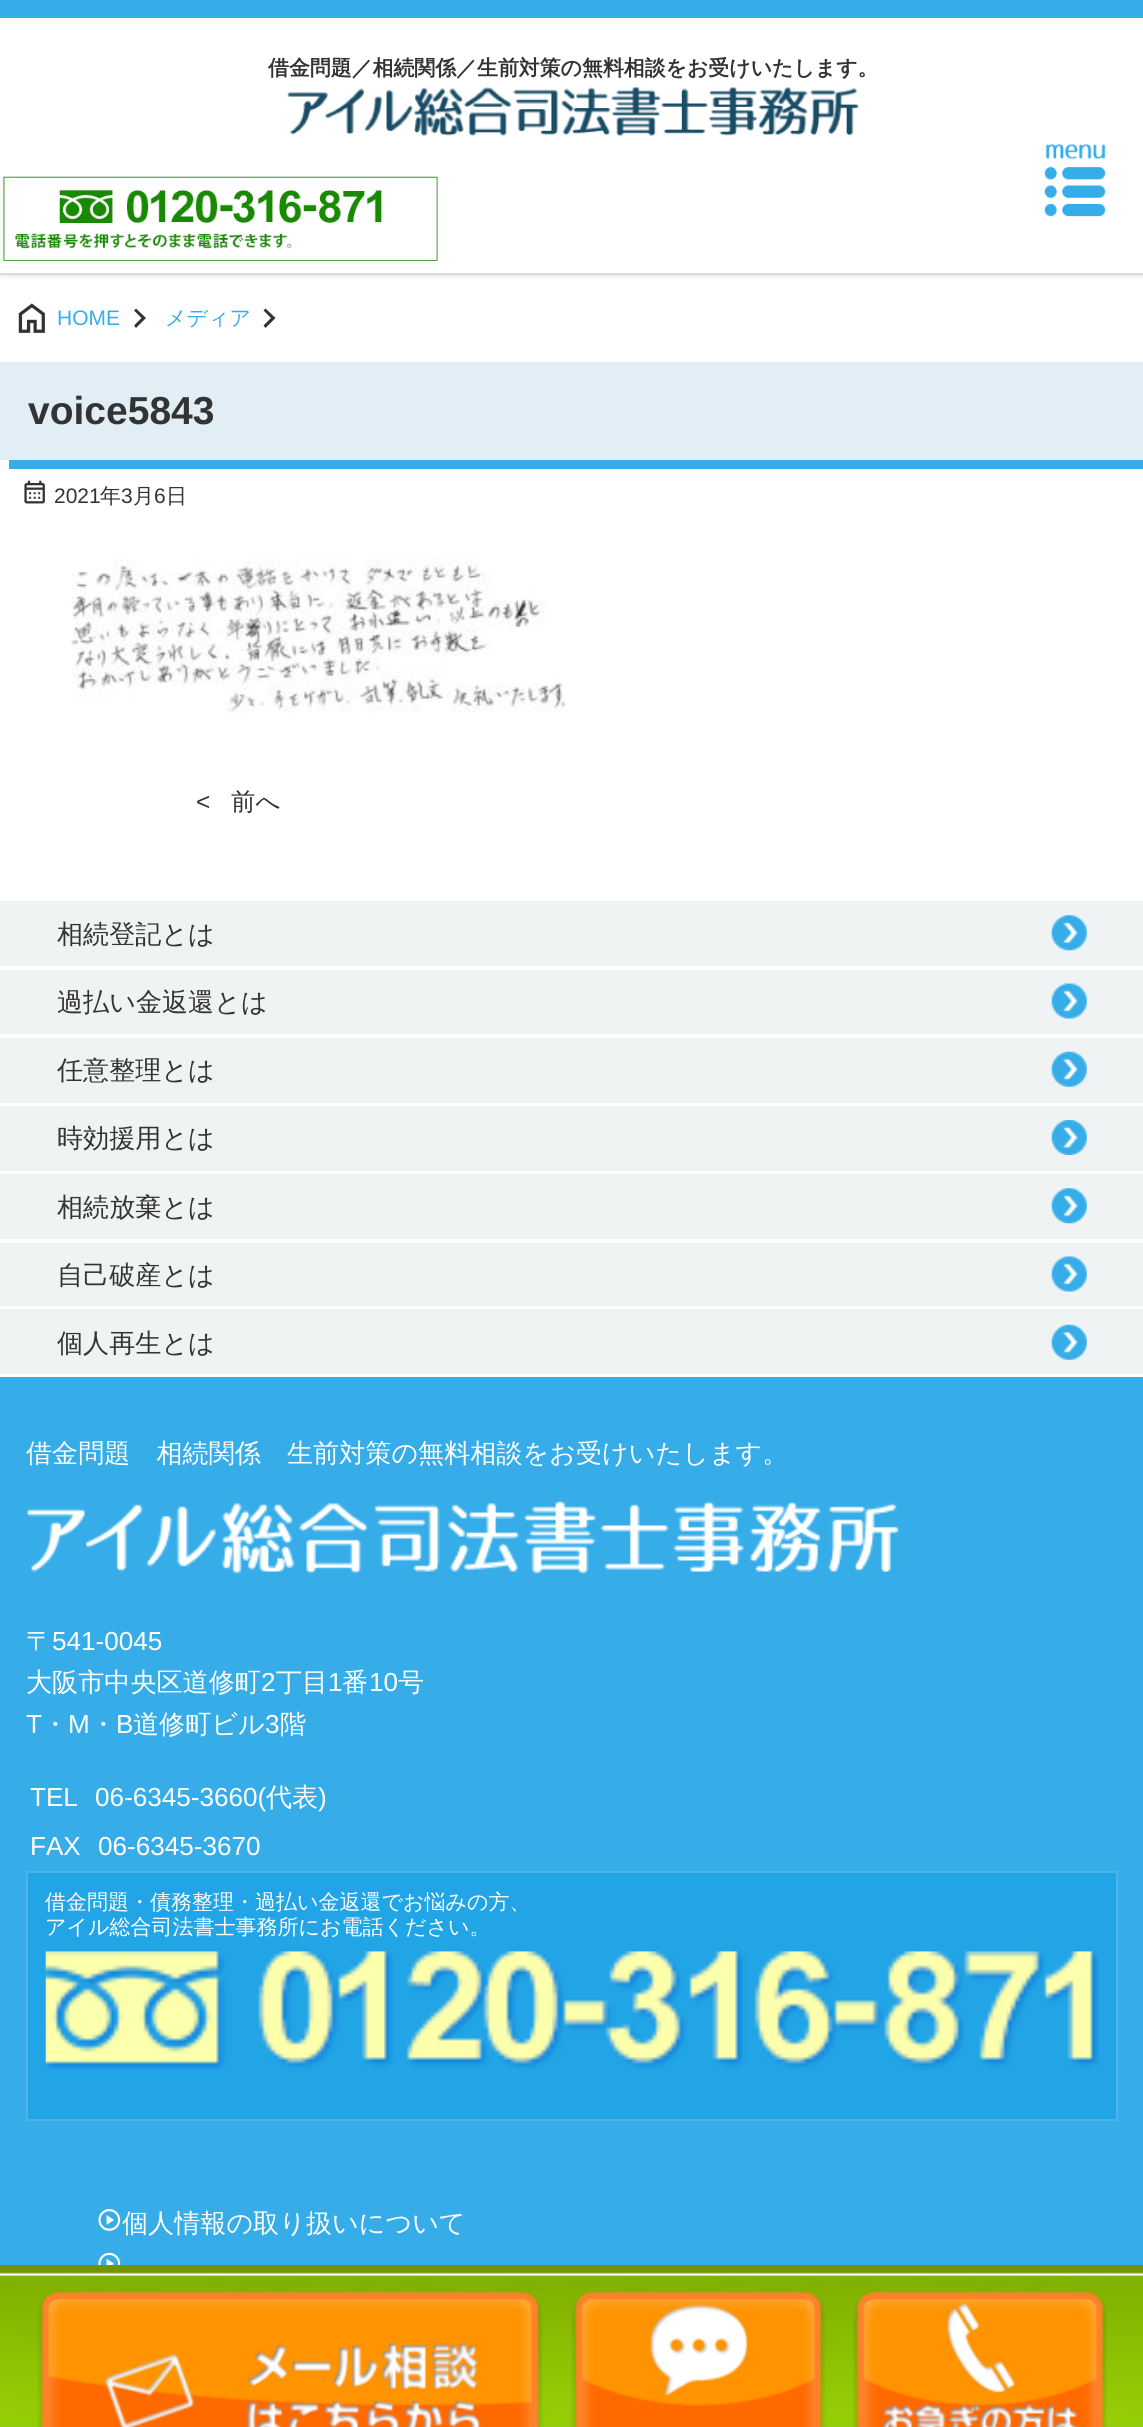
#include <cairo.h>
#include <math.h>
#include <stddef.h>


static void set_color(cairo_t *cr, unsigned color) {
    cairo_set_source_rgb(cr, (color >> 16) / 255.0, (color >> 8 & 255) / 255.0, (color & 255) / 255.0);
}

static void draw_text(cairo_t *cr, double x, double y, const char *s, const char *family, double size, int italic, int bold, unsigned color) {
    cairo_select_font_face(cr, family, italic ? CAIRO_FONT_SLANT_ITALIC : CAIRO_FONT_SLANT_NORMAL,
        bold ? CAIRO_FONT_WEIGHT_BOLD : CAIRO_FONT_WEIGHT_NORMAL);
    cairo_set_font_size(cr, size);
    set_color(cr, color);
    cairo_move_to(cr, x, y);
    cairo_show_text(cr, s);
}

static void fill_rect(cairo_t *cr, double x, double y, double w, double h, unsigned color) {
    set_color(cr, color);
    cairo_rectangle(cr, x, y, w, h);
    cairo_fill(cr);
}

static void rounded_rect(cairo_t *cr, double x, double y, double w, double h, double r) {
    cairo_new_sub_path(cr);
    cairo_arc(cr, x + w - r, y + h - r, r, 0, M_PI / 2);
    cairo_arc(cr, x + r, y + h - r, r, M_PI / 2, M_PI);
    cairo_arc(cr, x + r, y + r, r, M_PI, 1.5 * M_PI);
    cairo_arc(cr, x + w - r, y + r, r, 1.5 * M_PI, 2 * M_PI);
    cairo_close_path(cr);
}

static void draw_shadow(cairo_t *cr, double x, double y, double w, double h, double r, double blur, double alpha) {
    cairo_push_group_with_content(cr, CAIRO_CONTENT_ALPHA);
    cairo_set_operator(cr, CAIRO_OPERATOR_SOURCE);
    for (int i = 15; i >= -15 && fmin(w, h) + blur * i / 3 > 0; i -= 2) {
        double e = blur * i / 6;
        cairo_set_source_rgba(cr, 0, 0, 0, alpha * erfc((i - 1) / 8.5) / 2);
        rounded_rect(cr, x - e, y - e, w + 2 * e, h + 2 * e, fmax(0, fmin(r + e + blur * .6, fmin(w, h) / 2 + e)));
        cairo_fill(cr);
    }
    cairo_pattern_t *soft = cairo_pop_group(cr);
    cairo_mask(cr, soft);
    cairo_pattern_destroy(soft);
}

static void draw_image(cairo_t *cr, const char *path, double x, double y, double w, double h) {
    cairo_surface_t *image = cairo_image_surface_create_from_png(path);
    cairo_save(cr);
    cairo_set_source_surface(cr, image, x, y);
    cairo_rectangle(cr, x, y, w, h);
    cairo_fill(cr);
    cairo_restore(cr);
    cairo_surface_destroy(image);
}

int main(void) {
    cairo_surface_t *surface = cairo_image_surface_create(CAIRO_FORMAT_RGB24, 1143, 2427);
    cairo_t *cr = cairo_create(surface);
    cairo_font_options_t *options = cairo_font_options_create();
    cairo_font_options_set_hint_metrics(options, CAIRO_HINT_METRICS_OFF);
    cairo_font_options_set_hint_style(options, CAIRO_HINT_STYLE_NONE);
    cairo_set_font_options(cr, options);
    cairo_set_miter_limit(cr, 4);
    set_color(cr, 0xFFFFFF);
    cairo_paint(cr);
    cairo_save(cr);
    cairo_rectangle(cr, 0, 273, 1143, 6);
    cairo_clip(cr);
    set_color(cr, 0xCCCCCC);
    draw_shadow(cr, 0, 2, 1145, 273, 0, 2, 1);
    cairo_restore(cr);
    fill_rect(cr, 0, 0, 1143, 18, 0x36ADE9);
    draw_text(cr, 268, 75, "借金問題／相続関係／生前対策の無料相談をお受けいたします。", "WenQuanYi Zen Hei", 20.9, 0, 1, 0x333333);
    draw_image(cr, "assets/img1.png", 287, 87, 573, 49);
    draw_image(cr, "assets/img2.png", 3, 176, 435, 85);
    draw_image(cr, "assets/img3.png", 1044, 144, 62, 73);
    draw_image(cr, "assets/img4.png", 18, 303, 27, 30);
    draw_text(cr, 57, 325, "HOME", "Liberation Sans", 21, 0, 0, 0x36ADE9);
    set_color(cr, 0x333333);
    cairo_new_path(cr);
    cairo_move_to(cr, 141.5, 318);
    cairo_line_to(cr, 134, 310.5);
    cairo_line_to(cr, 136, 308.5);
    cairo_line_to(cr, 146, 318);
    cairo_line_to(cr, 136, 328);
    cairo_line_to(cr, 134, 325.5);
    cairo_close_path(cr);
    cairo_fill(cr);
    draw_text(cr, 165, 325, "メディア", "WenQuanYi Zen Hei Medium", 21, 0, 0, 0x36ADE9);
    set_color(cr, 0x333333);
    cairo_new_path(cr);
    cairo_move_to(cr, 271, 318);
    cairo_line_to(cr, 263.5, 310.5);
    cairo_line_to(cr, 265.5, 308.5);
    cairo_line_to(cr, 275.5, 318);
    cairo_line_to(cr, 265.5, 328);
    cairo_line_to(cr, 263.5, 325.5);
    cairo_close_path(cr);
    cairo_fill(cr);
    set_color(cr, 0x36ADE9);
    cairo_new_path(cr);
    cairo_move_to(cr, 9, 460);
    cairo_line_to(cr, 9, 469);
    cairo_line_to(cr, 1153, 469);
    cairo_line_to(cr, 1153, 371);
    cairo_line_to(cr, 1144, 371);
    cairo_line_to(cr, 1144, 460);
    cairo_close_path(cr);
    cairo_fill(cr);
    fill_rect(cr, 0, 362, 1143, 98, 0xE1EEF5);
    draw_text(cr, 28, 424, "voice5843", "Liberation Sans", 39, 0, 1, 0x333333);
    draw_image(cr, "assets/img5.png", 24, 480, 21, 24);
    draw_text(cr, 54, 503, "2021", "Liberation Sans", 21, 0, 0, 0x333333);
    draw_text(cr, 100, 503, "年", "WenQuanYi Zen Hei Medium", 21, 0, 0, 0x333333);
    draw_text(cr, 121, 503, "3", "Liberation Sans", 21, 0, 0, 0x333333);
    draw_text(cr, 133, 503, "月", "WenQuanYi Zen Hei Medium", 21, 0, 0, 0x333333);
    draw_text(cr, 154, 503, "6", "Liberation Sans", 21, 0, 0, 0x333333);
    draw_text(cr, 166, 503, "日", "WenQuanYi Zen Hei Medium", 21, 0, 0, 0x333333);
    draw_image(cr, "assets/img6.png", 71, 558, 496, 155);
    draw_text(cr, 196, 810, "<", "Liberation Sans", 24.5, 0, 0, 0x333333);
    draw_text(cr, 231, 810, "前へ", "WenQuanYi Zen Hei Medium", 24.5, 0, 0, 0x333333);
    fill_rect(cr, 0, 901, 1143, 65, 0xEFF3F4);
    draw_image(cr, "assets/img7.png", 1051, 915, 36, 36);
    draw_text(cr, 57, 943, "相続登記とは", "WenQuanYi Zen Hei Medium", 26.1, 0, 0, 0x333333);
    fill_rect(cr, 0, 970, 1143, 64, 0xEFF3F4);
    draw_image(cr, "assets/img8.png", 1051, 983, 36, 36);
    draw_text(cr, 57, 1011, "過払い金返還とは", "WenQuanYi Zen Hei Medium", 26.1, 0, 0, 0x333333);
    fill_rect(cr, 0, 1038, 1143, 65, 0xEFF3F4);
    draw_image(cr, "assets/img9.png", 1051, 1051, 36, 36);
    draw_text(cr, 57, 1079, "任意整理とは", "WenQuanYi Zen Hei Medium", 26.1, 0, 0, 0x333333);
    fill_rect(cr, 0, 1106, 1143, 65, 0xEFF3F4);
    draw_image(cr, "assets/img10.png", 1051, 1120, 36, 35);
    draw_text(cr, 57, 1147, "時効援用とは", "WenQuanYi Zen Hei Medium", 26.1, 0, 0, 0x333333);
    fill_rect(cr, 0, 1174, 1143, 65, 0xEFF3F4);
    draw_image(cr, "assets/img7.png", 1051, 1188, 36, 36);
    draw_text(cr, 57, 1216, "相続放棄とは", "WenQuanYi Zen Hei Medium", 26.1, 0, 0, 0x333333);
    fill_rect(cr, 0, 1243, 1143, 63, 0xEFF3F4);
    draw_image(cr, "assets/img8.png", 1051, 1256, 36, 36);
    draw_text(cr, 57, 1284, "自己破産とは", "WenQuanYi Zen Hei Medium", 26.1, 0, 0, 0x333333);
    fill_rect(cr, 0, 1309, 1143, 65, 0xEFF3F4);
    draw_image(cr, "assets/img11.png", 1051, 1324, 36, 36);
    draw_text(cr, 57, 1352, "個人再生とは", "WenQuanYi Zen Hei Medium", 26.1, 0, 0, 0x333333);
    fill_rect(cr, 0, 1377, 1143, 1050, 0x36ADE9);
    draw_text(cr, 26, 1462, "借金問題　相続関係　生前対策の無料相談をお受けいたします。", "WenQuanYi Zen Hei Medium", 26.1, 0, 0, 0xFFFFFF);
    draw_image(cr, "assets/img12.png", 26, 1501, 874, 73);
    draw_text(cr, 26, 1650, "〒", "WenQuanYi Zen Hei Medium", 26.1, 0, 0, 0xFFFFFF);
    draw_text(cr, 52, 1650, "541-0045", "Liberation Sans", 26.1, 0, 0, 0xFFFFFF);
    draw_text(cr, 26, 1691, "大阪市中央区道修町", "WenQuanYi Zen Hei Medium", 26.1, 0, 0, 0xFFFFFF);
    draw_text(cr, 261, 1691, "2", "Liberation Sans", 26.1, 0, 0, 0xFFFFFF);
    draw_text(cr, 276, 1691, "丁目", "WenQuanYi Zen Hei Medium", 26.1, 0, 0, 0xFFFFFF);
    draw_text(cr, 328, 1691, "1", "Liberation Sans", 26.1, 0, 0, 0xFFFFFF);
    draw_text(cr, 342, 1691, "番", "WenQuanYi Zen Hei Medium", 26.1, 0, 0, 0xFFFFFF);
    draw_text(cr, 369, 1691, "10", "Liberation Sans", 26.1, 0, 0, 0xFFFFFF);
    draw_text(cr, 398, 1691, "号", "WenQuanYi Zen Hei Medium", 26.1, 0, 0, 0xFFFFFF);
    draw_text(cr, 26, 1733, "T", "Liberation Sans", 26.1, 0, 0, 0xFFFFFF);
    draw_text(cr, 42, 1733, "・", "WenQuanYi Zen Hei Medium", 26.1, 0, 0, 0xFFFFFF);
    draw_text(cr, 68, 1733, "M", "Liberation Sans", 26.1, 0, 0, 0xFFFFFF);
    draw_text(cr, 90, 1733, "・", "WenQuanYi Zen Hei Medium", 26.1, 0, 0, 0xFFFFFF);
    draw_text(cr, 116, 1733, "B", "Liberation Sans", 26.1, 0, 0, 0xFFFFFF);
    draw_text(cr, 133, 1733, "道修町ビル", "WenQuanYi Zen Hei Medium", 26.1, 0, 0, 0xFFFFFF);
    draw_text(cr, 265, 1733, "3", "Liberation Sans", 26.1, 0, 0, 0xFFFFFF);
    draw_text(cr, 280, 1733, "階", "WenQuanYi Zen Hei Medium", 26.1, 0, 0, 0xFFFFFF);
    draw_text(cr, 30, 1806, "TEL", "Liberation Sans", 26.1, 0, 0, 0xFFFFFF);
    draw_text(cr, 95, 1806, "06-6345-3660(", "Liberation Sans", 26.1, 0, 0, 0xFFFFFF);
    draw_text(cr, 266, 1806, "代表", "WenQuanYi Zen Hei Medium", 26.1, 0, 0, 0xFFFFFF);
    draw_text(cr, 318, 1806, ")", "Liberation Sans", 26.1, 0, 0, 0xFFFFFF);
    draw_text(cr, 30, 1855, "FAX", "Liberation Sans", 26.1, 0, 0, 0xFFFFFF);
    draw_text(cr, 98, 1855, "06-6345-3670", "Liberation Sans", 26.1, 0, 0, 0xFFFFFF);
    set_color(cr, 0x22A5E7);
    cairo_rectangle(cr, 27, 1872, 1090, 248);
    cairo_fill_preserve(cr);
    set_color(cr, 0x4DB5EA);
    cairo_stroke(cr);
    draw_text(cr, 45, 1909, "借金問題・債務整理・過払い金返還でお悩みの方、", "WenQuanYi Zen Hei Medium", 21, 0, 0, 0xFFFFFF);
    draw_text(cr, 45, 1934, "アイル総合司法書士事務所にお電話ください。", "WenQuanYi Zen Hei Medium", 21, 0, 0, 0xFFFFFF);
    draw_image(cr, "assets/img13.png", 45, 1951, 1054, 119);
    draw_image(cr, "assets/img14.png", 98, 2209, 23, 22);
    draw_text(cr, 122, 2232, "個人情報の取り扱いについて", "WenQuanYi Zen Hei Medium", 26.1, 0, 0, 0xFFFFFF);
    draw_image(cr, "assets/img15.png", 98, 2252, 23, 13);
    draw_image(cr, "assets/img16.png", 0, 2265, 1143, 162);
    draw_image(cr, "assets/img17.png", 37, 2291, 506, 136);
    draw_image(cr, "assets/img18.png", 571, 2291, 255, 136);
    draw_image(cr, "assets/img19.png", 853, 2291, 254, 136);
    cairo_surface_write_to_png(surface, "output.png");
    cairo_font_options_destroy(options);
    cairo_destroy(cr);
    cairo_surface_destroy(surface);
    return 0;
}
